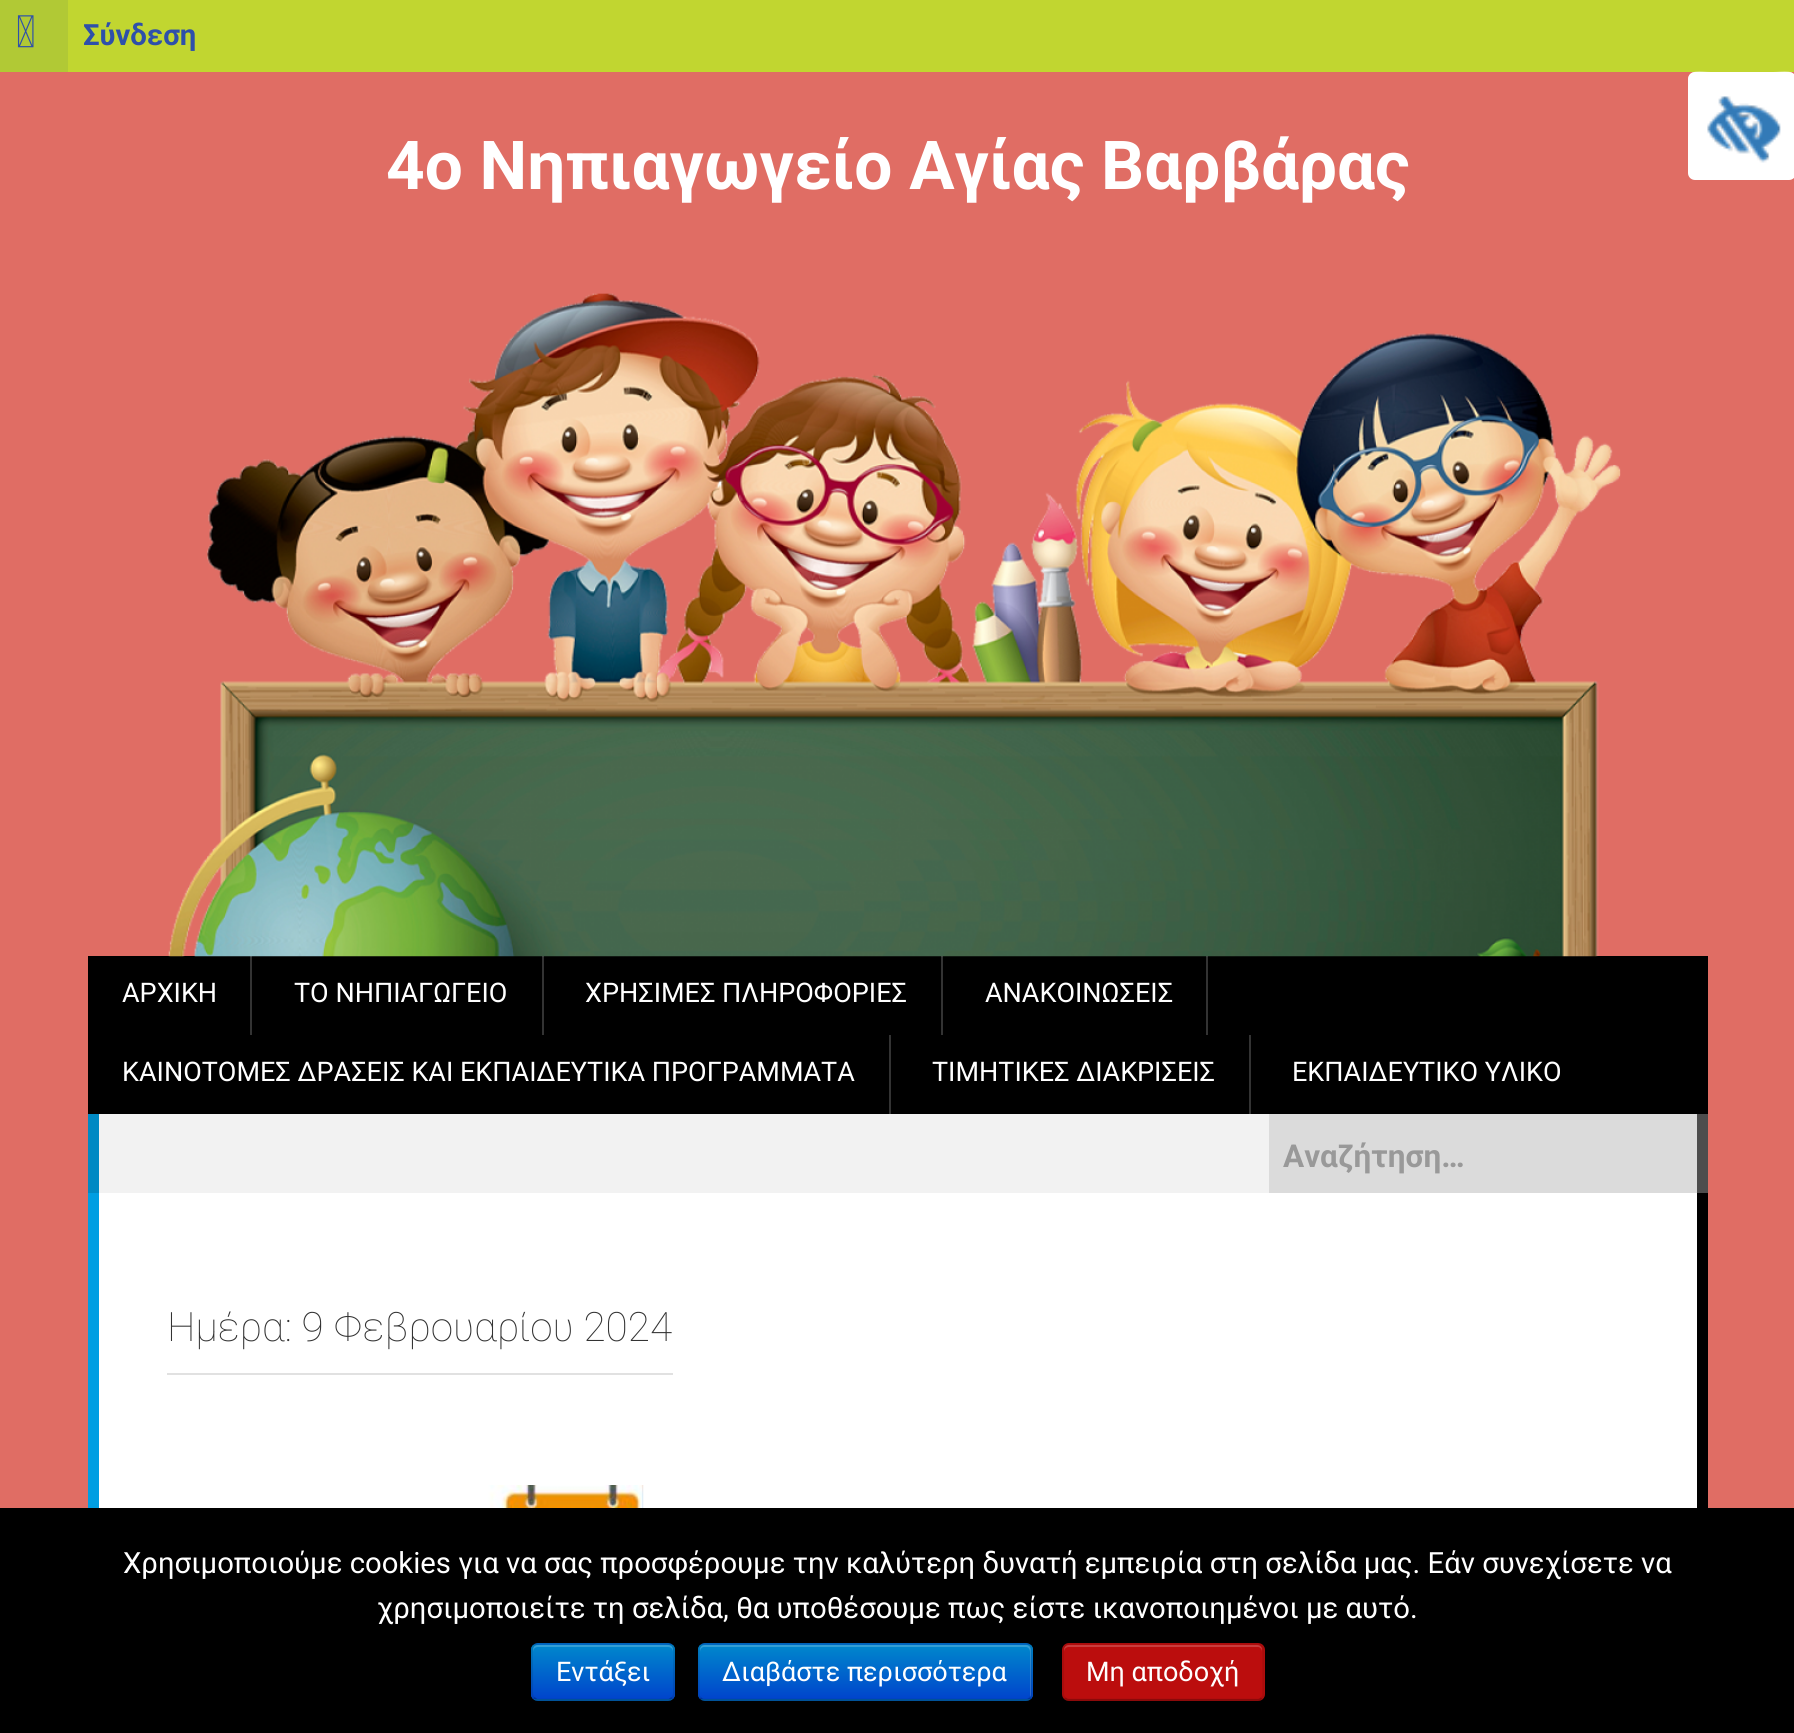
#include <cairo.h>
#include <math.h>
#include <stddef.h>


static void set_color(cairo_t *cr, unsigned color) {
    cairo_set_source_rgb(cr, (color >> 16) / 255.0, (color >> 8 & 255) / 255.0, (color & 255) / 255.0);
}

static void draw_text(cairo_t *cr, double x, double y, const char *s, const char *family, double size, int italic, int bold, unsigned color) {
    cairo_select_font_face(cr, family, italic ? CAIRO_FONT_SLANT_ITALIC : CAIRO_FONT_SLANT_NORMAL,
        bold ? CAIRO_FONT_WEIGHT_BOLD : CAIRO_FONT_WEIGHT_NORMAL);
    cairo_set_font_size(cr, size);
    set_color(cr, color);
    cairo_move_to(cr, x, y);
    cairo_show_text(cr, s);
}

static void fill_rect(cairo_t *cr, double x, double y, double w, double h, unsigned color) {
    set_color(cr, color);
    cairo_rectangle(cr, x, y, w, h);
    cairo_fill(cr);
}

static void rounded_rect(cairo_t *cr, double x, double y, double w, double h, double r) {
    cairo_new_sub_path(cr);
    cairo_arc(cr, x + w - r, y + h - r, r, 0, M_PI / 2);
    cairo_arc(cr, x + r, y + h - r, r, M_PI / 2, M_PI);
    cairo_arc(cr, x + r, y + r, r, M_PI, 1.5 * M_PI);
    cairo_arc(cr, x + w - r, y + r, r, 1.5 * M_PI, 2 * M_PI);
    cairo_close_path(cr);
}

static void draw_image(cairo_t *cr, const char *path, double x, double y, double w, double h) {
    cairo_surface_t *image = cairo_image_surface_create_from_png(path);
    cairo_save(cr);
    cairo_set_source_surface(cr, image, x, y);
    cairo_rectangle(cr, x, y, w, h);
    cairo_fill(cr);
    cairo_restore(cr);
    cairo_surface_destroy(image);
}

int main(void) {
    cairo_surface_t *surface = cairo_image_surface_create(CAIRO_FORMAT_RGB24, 1794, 1733);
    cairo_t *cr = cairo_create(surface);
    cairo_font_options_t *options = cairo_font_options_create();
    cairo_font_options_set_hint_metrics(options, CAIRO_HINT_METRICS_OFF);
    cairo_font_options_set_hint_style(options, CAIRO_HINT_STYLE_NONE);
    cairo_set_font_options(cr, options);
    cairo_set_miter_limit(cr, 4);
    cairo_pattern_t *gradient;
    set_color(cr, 0xE06D64);
    cairo_paint(cr);
    fill_rect(cr, 68, 0, 1726, 72, 0xC1D630);
    fill_rect(cr, 0, 0, 68, 72, 0xB1C935);
    draw_image(cr, "assets/img1.png", 17, 15, 17, 33);
    draw_text(cr, 83, 45, "Σύνδεση", "Roboto", 29.25, 0, 1, 0x2E50AA);
    draw_text(cr, 386, 189, "4o Νηπιαγωγείο Αγίας Βαρβάρας", "Roboto", 67.5, 0, 1, 0xFFFFFF);
    fill_rect(cr, 88, 956, 1620, 158, 0x000000);
    draw_image(cr, "assets/img2.png", 168, 293, 1453, 664);
    cairo_set_source_rgba(cr, 1, 1, 1, 0.2);
    cairo_rectangle(cr, 250, 956, 2, 79);
    cairo_fill(cr);
    draw_text(cr, 122, 1002, "ΑΡΧΙΚΗ", "Roboto", 27, 0, 0, 0xFFFFFF);
    cairo_set_source_rgba(cr, 1, 1, 1, 0.2);
    cairo_rectangle(cr, 542, 956, 2, 79);
    cairo_fill(cr);
    draw_text(cr, 294, 1002, "ΤΟ ΝΗΠΙΑΓΩΓΕΙΟ", "Roboto", 27, 0, 0, 0xFFFFFF);
    cairo_set_source_rgba(cr, 1, 1, 1, 0.2);
    cairo_rectangle(cr, 941, 956, 2, 79);
    cairo_fill(cr);
    draw_text(cr, 585, 1002, "ΧΡΗΣΙΜΕΣ ΠΛΗΡΟΦΟΡΙΕΣ", "Roboto", 27, 0, 0, 0xFFFFFF);
    cairo_set_source_rgba(cr, 1, 1, 1, 0.2);
    cairo_rectangle(cr, 1206, 956, 2, 79);
    cairo_fill(cr);
    draw_text(cr, 985, 1002, "ΑΝΑΚΟΙΝΩΣΕΙΣ", "Roboto", 27, 0, 0, 0xFFFFFF);
    fill_rect(cr, 889, 1035, 2, 79, 0x333333);
    draw_text(cr, 122, 1081, "ΚΑΙΝΟΤΟΜΕΣ ΔΡΑΣΕΙΣ ΚΑΙ ΕΚΠΑΙΔΕΥΤΙΚΑ ΠΡΟΓΡΑΜΜΑΤΑ", "Roboto", 27, 0, 0, 0xFFFFFF);
    fill_rect(cr, 1249, 1035, 2, 79, 0x333333);
    draw_text(cr, 932, 1081, "ΤΙΜΗΤΙΚΕΣ ΔΙΑΚΡΙΣΕΙΣ", "Roboto", 27, 0, 0, 0xFFFFFF);
    draw_text(cr, 1292, 1081, "ΕΚΠΑΙΔΕΥΤΙΚΟ ΥΛΙΚΟ", "Roboto", 27, 0, 0, 0xFFFFFF);
    fill_rect(cr, 99, 1114, 1170, 79, 0xF2F2F2);
    fill_rect(cr, 1697, 1114, 11, 79, 0x4D4D4D);
    fill_rect(cr, 88, 1114, 11, 79, 0x0089C3);
    fill_rect(cr, 1269, 1114, 428, 79, 0xDBDBDB);
    draw_text(cr, 1283, 1167, "Αναζήτηση…", "Roboto", 31.5, 0, 1, 0x999999);
    fill_rect(cr, 99, 1193, 1598, 315, 0xFFFFFF);
    fill_rect(cr, 1697, 1193, 11, 315, 0x000000);
    fill_rect(cr, 88, 1193, 11, 315, 0x009EE2);
    fill_rect(cr, 167, 1373, 506, 2, 0xE1E1E1);
    draw_text(cr, 167, 1341, "Ημέρα: 9 Φεβρουαρίου 2024", "Roboto Thin", 40.5, 0, 0, 0x333333);
    draw_image(cr, "assets/img3.png", 166, 1485, 478, 23);
    set_color(cr, 0xFFFFFF);
    rounded_rect(cr, 1688, 72, 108, 108, 7);
    cairo_fill(cr);
    cairo_set_source_rgba(cr, 1, 1, 1, 0.5);
    cairo_new_path(cr);
    cairo_move_to(cr, 1694, 74);
    cairo_line_to(cr, 1789, 74);
    cairo_curve_to(cr, 1792, 74, 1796, 77, 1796, 81);
    cairo_curve_to(cr, 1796, 68, 1783, 72, 1773, 72);
    cairo_line_to(cr, 1711, 72);
    cairo_curve_to(cr, 1701, 72, 1688, 68, 1688, 81);
    cairo_curve_to(cr, 1688, 77, 1691, 74, 1694, 74);
    cairo_close_path(cr);
    cairo_fill(cr);
    draw_image(cr, "assets/img4.png", 1707, 96, 74, 67);
    fill_rect(cr, 0, 1508, 1794, 225, 0x000000);
    draw_text(cr, 123, 1573, "Χρησιμοποιούμε cookies για να σας προσφέρουμε την καλύτερη δυνατή εμπειρία στη σελίδα μας. Εάν συνεχίσετε να", "Roboto", 29.25, 0, 0, 0xFFFFFF);
    draw_text(cr, 377, 1618, "χρησιμοποιείτε τη σελίδα, θα υποθέσουμε πως είστε ικανοποιημένοι με αυτό.", "Roboto", 29.25, 0, 0, 0xFFFFFF);
    set_color(cr, 0x006DCC);
    rounded_rect(cr, 531, 1643, 144, 58, 7);
    cairo_fill(cr);
    cairo_save(cr);
    rounded_rect(cr, 531, 1643, 144, 58, 7);
    cairo_clip(cr);
    gradient = cairo_pattern_create_linear(603, 1645, 603, 1699);
    cairo_pattern_add_color_stop_rgba(gradient, 0, 0, 0.533, 0.8, 1);
    cairo_pattern_add_color_stop_rgba(gradient, 1, 0, 0.267, 0.8, 1);
    cairo_set_source(cr, gradient);
    cairo_pattern_destroy(gradient);
    cairo_rectangle(cr, 531, 1645, 144, 54);
    cairo_fill(cr);
    cairo_restore(cr);
    cairo_set_source_rgba(cr, 1, 1, 1, 0.2);
    cairo_new_path(cr);
    cairo_move_to(cr, 538, 1647);
    cairo_line_to(cr, 668, 1647);
    cairo_curve_to(cr, 671, 1647, 673, 1649, 673, 1652);
    cairo_line_to(cr, 673, 1650);
    cairo_curve_to(cr, 673, 1647, 671, 1645, 668, 1645);
    cairo_line_to(cr, 538, 1645);
    cairo_curve_to(cr, 535, 1645, 533, 1647, 533, 1650);
    cairo_line_to(cr, 533, 1652);
    cairo_curve_to(cr, 533, 1649, 535, 1647, 538, 1647);
    cairo_close_path(cr);
    cairo_fill(cr);
    cairo_new_path(cr);
    cairo_move_to(cr, 672, 1698);
    cairo_line_to(cr, 669, 1700);
    cairo_line_to(cr, 537, 1700);
    cairo_line_to(cr, 534, 1698);
    cairo_set_source_rgba(cr, 0, 0, 0, 0.25);
    cairo_set_line_width(cr, 2.2);
    cairo_stroke(cr);
    cairo_new_path(cr);
    cairo_move_to(cr, 534, 1698);
    cairo_curve_to(cr, 531, 1695.5, 532, 1690, 532, 1687);
    cairo_line_to(cr, 532, 1672);
    cairo_curve_to(cr, 532, 1639.5, 526.5, 1643.5, 559.5, 1643.5);
    cairo_line_to(cr, 646.5, 1643.5);
    cairo_curve_to(cr, 679.5, 1643.5, 674, 1639.5, 674, 1672);
    cairo_line_to(cr, 674, 1687);
    cairo_curve_to(cr, 674, 1690, 675, 1695.5, 672, 1698);
    cairo_set_source_rgba(cr, 0, 0, 0, 0.1);
    cairo_stroke(cr);
    draw_text(cr, 556, 1681, "Εντάξει", "Roboto", 27, 0, 0, 0xFFFFFF);
    set_color(cr, 0x006DCC);
    rounded_rect(cr, 698, 1643, 335, 58, 7);
    cairo_fill(cr);
    cairo_save(cr);
    rounded_rect(cr, 698, 1643, 335, 58, 7);
    cairo_clip(cr);
    gradient = cairo_pattern_create_linear(865, 1645, 865, 1699);
    cairo_pattern_add_color_stop_rgba(gradient, 0, 0, 0.533, 0.8, 1);
    cairo_pattern_add_color_stop_rgba(gradient, 1, 0, 0.267, 0.8, 1);
    cairo_set_source(cr, gradient);
    cairo_pattern_destroy(gradient);
    cairo_rectangle(cr, 698, 1645, 335, 54);
    cairo_fill(cr);
    cairo_restore(cr);
    cairo_set_source_rgba(cr, 1, 1, 1, 0.2);
    cairo_new_path(cr);
    cairo_move_to(cr, 704, 1647);
    cairo_line_to(cr, 1026, 1647);
    cairo_curve_to(cr, 1028, 1647, 1030, 1649, 1030, 1652);
    cairo_line_to(cr, 1030, 1697);
    cairo_curve_to(cr, 1031, 1696, 1031, 1695, 1031, 1694);
    cairo_line_to(cr, 1031, 1650);
    cairo_curve_to(cr, 1031, 1647, 1029, 1645, 1026, 1645);
    cairo_line_to(cr, 705, 1645);
    cairo_curve_to(cr, 702, 1645, 700, 1647, 700, 1650);
    cairo_line_to(cr, 700, 1652);
    cairo_curve_to(cr, 700, 1649, 702, 1647, 704, 1647);
    cairo_close_path(cr);
    cairo_fill(cr);
    cairo_new_path(cr);
    cairo_move_to(cr, 1030, 1698);
    cairo_curve_to(cr, 1029, 1699.5, 1027.5, 1700, 1026, 1700);
    cairo_line_to(cr, 704, 1700);
    cairo_curve_to(cr, 703, 1700, 701.5, 1699.5, 700.5, 1698);
    cairo_set_source_rgba(cr, 0, 0, 0, 0.25);
    cairo_stroke(cr);
    cairo_new_path(cr);
    cairo_move_to(cr, 700.5, 1698);
    cairo_curve_to(cr, 699, 1697, 698.5, 1695.5, 698.5, 1694);
    cairo_line_to(cr, 698.5, 1649);
    cairo_curve_to(cr, 698.5, 1648, 699, 1646.5, 700.5, 1645.5);
    cairo_curve_to(cr, 701.5, 1644, 703, 1643.5, 704, 1643.5);
    cairo_line_to(cr, 1026, 1643.5);
    cairo_curve_to(cr, 1027.5, 1643.5, 1029, 1644, 1030, 1645.5);
    cairo_curve_to(cr, 1031, 1646.5, 1031.5, 1648, 1031.5, 1649);
    cairo_line_to(cr, 1031.5, 1694);
    cairo_curve_to(cr, 1031.5, 1695.5, 1031, 1697, 1030, 1698);
    cairo_set_source_rgba(cr, 0, 0, 0, 0.1);
    cairo_stroke(cr);
    draw_text(cr, 722, 1681, "Διαβάστε περισσότερα", "Roboto", 27, 0, 0, 0xFFFFFF);
    set_color(cr, 0xBB0D0D);
    rounded_rect(cr, 1062, 1643, 203, 58, 7);
    cairo_fill(cr);
    set_color(cr, 0xC93D3D);
    cairo_new_path(cr);
    cairo_move_to(cr, 1069, 1647);
    cairo_line_to(cr, 1258, 1647);
    cairo_curve_to(cr, 1260, 1647, 1262, 1649, 1262, 1652);
    cairo_line_to(cr, 1262, 1650);
    cairo_curve_to(cr, 1262, 1647, 1260, 1645, 1257, 1645);
    cairo_line_to(cr, 1069, 1645);
    cairo_curve_to(cr, 1066, 1645, 1064, 1647, 1064, 1650);
    cairo_line_to(cr, 1064, 1652);
    cairo_curve_to(cr, 1064, 1649, 1066, 1647, 1069, 1647);
    cairo_close_path(cr);
    cairo_fill(cr);
    cairo_new_path(cr);
    cairo_move_to(cr, 1261.5, 1698);
    cairo_curve_to(cr, 1260.5, 1699.5, 1259, 1700, 1258, 1700);
    cairo_line_to(cr, 1069, 1700);
    cairo_curve_to(cr, 1067.5, 1700, 1066, 1699.5, 1065, 1698);
    cairo_set_source_rgba(cr, 0, 0, 0, 0.25);
    cairo_stroke(cr);
    cairo_new_path(cr);
    cairo_move_to(cr, 1065, 1698);
    cairo_curve_to(cr, 1063.5, 1697, 1063, 1695.5, 1063, 1694);
    cairo_line_to(cr, 1063, 1649);
    cairo_curve_to(cr, 1063, 1648, 1063.5, 1646.5, 1065, 1645.5);
    cairo_curve_to(cr, 1066, 1644, 1067.5, 1643.5, 1069, 1643.5);
    cairo_line_to(cr, 1258, 1643.5);
    cairo_curve_to(cr, 1259, 1643.5, 1260.5, 1644, 1261.5, 1645.5);
    cairo_curve_to(cr, 1263, 1646.5, 1263.5, 1648, 1263.5, 1649);
    cairo_line_to(cr, 1263.5, 1694);
    cairo_curve_to(cr, 1263.5, 1695.5, 1263, 1697, 1261.5, 1698);
    cairo_set_source_rgba(cr, 0, 0, 0, 0.1);
    cairo_stroke(cr);
    draw_text(cr, 1086, 1681, "Μη αποδοχή", "Roboto", 27, 0, 0, 0xFFFFFF);
    cairo_surface_write_to_png(surface, "output.png");
    cairo_font_options_destroy(options);
    cairo_destroy(cr);
    cairo_surface_destroy(surface);
    return 0;
}
